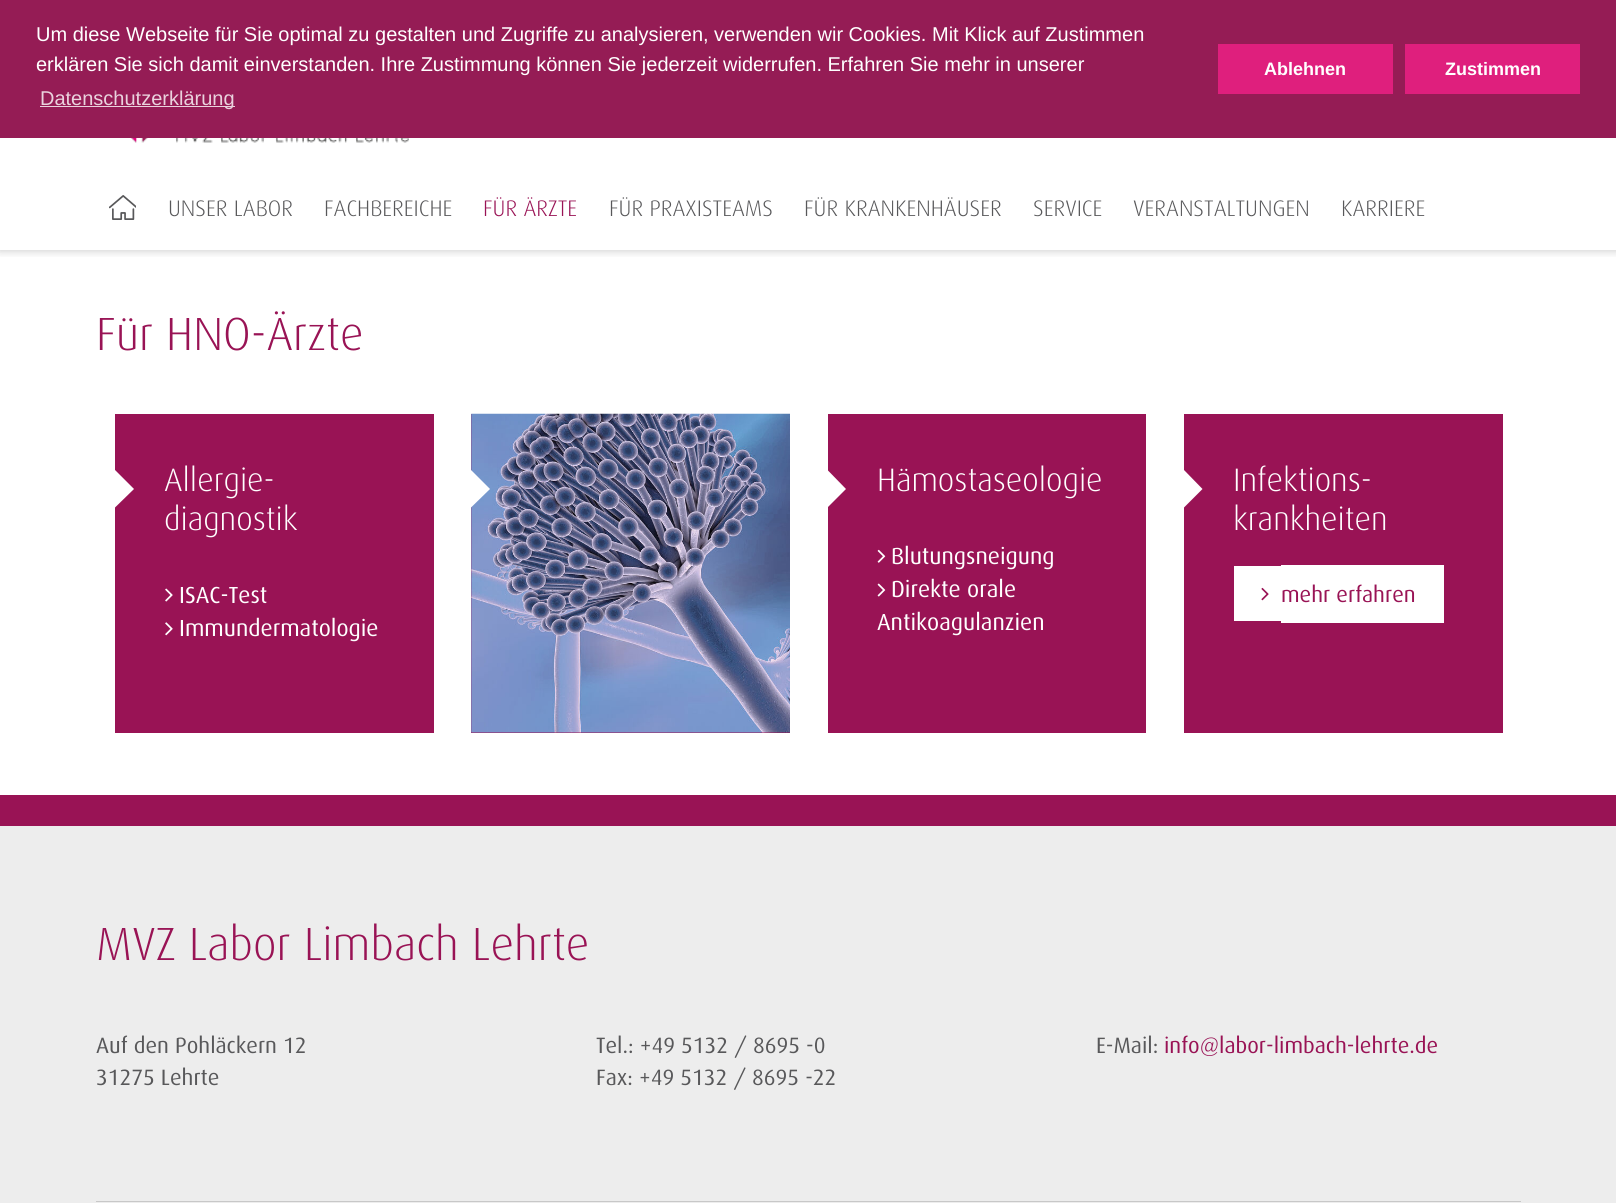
#include <cairo.h>
#include <math.h>
#include <stddef.h>


static void set_color(cairo_t *cr, unsigned color) {
    cairo_set_source_rgb(cr, (color >> 16) / 255.0, (color >> 8 & 255) / 255.0, (color & 255) / 255.0);
}

static void draw_text(cairo_t *cr, double x, double y, const char *s, const char *family, double size, int italic, int bold, unsigned color) {
    cairo_select_font_face(cr, family, italic ? CAIRO_FONT_SLANT_ITALIC : CAIRO_FONT_SLANT_NORMAL,
        bold ? CAIRO_FONT_WEIGHT_BOLD : CAIRO_FONT_WEIGHT_NORMAL);
    cairo_set_font_size(cr, size);
    set_color(cr, color);
    cairo_move_to(cr, x, y);
    cairo_show_text(cr, s);
}

static void fill_rect(cairo_t *cr, double x, double y, double w, double h, unsigned color) {
    set_color(cr, color);
    cairo_rectangle(cr, x, y, w, h);
    cairo_fill(cr);
}

static void rounded_rect(cairo_t *cr, double x, double y, double w, double h, double r) {
    cairo_new_sub_path(cr);
    cairo_arc(cr, x + w - r, y + h - r, r, 0, M_PI / 2);
    cairo_arc(cr, x + r, y + h - r, r, M_PI / 2, M_PI);
    cairo_arc(cr, x + r, y + r, r, M_PI, 1.5 * M_PI);
    cairo_arc(cr, x + w - r, y + r, r, 1.5 * M_PI, 2 * M_PI);
    cairo_close_path(cr);
}

static void draw_shadow(cairo_t *cr, double x, double y, double w, double h, double r, double blur, double alpha) {
    cairo_push_group_with_content(cr, CAIRO_CONTENT_ALPHA);
    cairo_set_operator(cr, CAIRO_OPERATOR_SOURCE);
    for (int i = 15; i >= -15 && fmin(w, h) + blur * i / 3 > 0; i -= 2) {
        double e = blur * i / 6;
        cairo_set_source_rgba(cr, 0, 0, 0, alpha * erfc((i - 1) / 8.5) / 2);
        rounded_rect(cr, x - e, y - e, w + 2 * e, h + 2 * e, fmax(0, fmin(r + e + blur * .6, fmin(w, h) / 2 + e)));
        cairo_fill(cr);
    }
    cairo_pattern_t *soft = cairo_pop_group(cr);
    cairo_mask(cr, soft);
    cairo_pattern_destroy(soft);
}

static void draw_image(cairo_t *cr, const char *path, double x, double y, double w, double h) {
    cairo_surface_t *image = cairo_image_surface_create_from_png(path);
    cairo_save(cr);
    cairo_set_source_surface(cr, image, x, y);
    cairo_rectangle(cr, x, y, w, h);
    cairo_fill(cr);
    cairo_restore(cr);
    cairo_surface_destroy(image);
}

int main(void) {
    cairo_surface_t *surface = cairo_image_surface_create(CAIRO_FORMAT_RGB24, 1616, 1203);
    cairo_t *cr = cairo_create(surface);
    cairo_font_options_t *options = cairo_font_options_create();
    cairo_font_options_set_hint_metrics(options, CAIRO_HINT_METRICS_OFF);
    cairo_font_options_set_hint_style(options, CAIRO_HINT_STYLE_NONE);
    cairo_set_font_options(cr, options);
    cairo_set_miter_limit(cr, 4);
    set_color(cr, 0xFFFFFF);
    cairo_paint(cr);
    cairo_save(cr);
    cairo_rectangle(cr, 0, 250, 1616, 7);
    cairo_clip(cr);
    set_color(cr, 0x000000);
    draw_shadow(cr, -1, -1, 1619, 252, 0, 4.5, 0.2);
    cairo_restore(cr);
    fill_rect(cr, 0, 0, 1616, 138, 0x951C55);
    draw_text(cr, 36, 41, "Um diese Webseite für Sie optimal zu gestalten und Zugriffe zu analysieren, verwenden wir Cookies. Mit Klick auf Zustimmen", "Liberation Sans", 20, 0, 0, 0xFFFFFF);
    draw_text(cr, 36, 71, "erklären Sie sich damit einverstanden. Ihre Zustimmung können Sie jederzeit widerrufen. Erfahren Sie mehr in unserer", "Liberation Sans", 20, 0, 0, 0xFFFFFF);
    fill_rect(cr, 40, 106, 195, 1, 0xEAD2DD);
    draw_text(cr, 40, 105, "Datenschutzerklärung", "Liberation Sans", 20, 0, 0, 0xEAD2DD);
    fill_rect(cr, 1218, 44, 175, 50, 0xDF1F7D);
    draw_text(cr, 1264, 75, "Ablehnen", "Liberation Sans", 18, 0, 1, 0xFFFFFF);
    fill_rect(cr, 1405, 44, 175, 50, 0xDF1F7D);
    draw_text(cr, 1445, 75, "Zustimmen", "Liberation Sans", 18, 0, 1, 0xFFFFFF);
    draw_image(cr, "assets/img1.png", 131, 138, 278, 5);
    draw_image(cr, "assets/img2.png", 109, 195, 27, 25);
    draw_text(cr, 168, 216, "UNSER LABOR", "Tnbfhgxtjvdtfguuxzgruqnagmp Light", 22.5, 0, 0, 0x58585A);
    draw_text(cr, 324, 216, "FACHBEREICHE", "Tnbfhgxtjvdtfguuxzgruqnagmp Light", 22.5, 0, 0, 0x58585A);
    draw_text(cr, 483, 216, "FÜR ÄRZTE", "Tnbfhgxtjvdtfguuxzgruqnagmp Light", 22.5, 0, 0, 0x991355);
    draw_text(cr, 609, 216, "FÜR PRAXISTEAMS", "Tnbfhgxtjvdtfguuxzgruqnagmp Light", 22.5, 0, 0, 0x58585A);
    draw_text(cr, 804, 216, "FÜR KRANKENHÄUSER", "Tnbfhgxtjvdtfguuxzgruqnagmp Light", 22.5, 0, 0, 0x58585A);
    draw_text(cr, 1033, 216, "SERVICE", "Tnbfhgxtjvdtfguuxzgruqnagmp Light", 22.5, 0, 0, 0x58585A);
    draw_text(cr, 1133, 216, "VERANSTALTUNGEN", "Tnbfhgxtjvdtfguuxzgruqnagmp Light", 22.5, 0, 0, 0x58585A);
    draw_text(cr, 1341, 216, "KARRIERE", "Tnbfhgxtjvdtfguuxzgruqnagmp Light", 22.5, 0, 0, 0x58585A);
    draw_text(cr, 96, 350, "Für HNO-Ärzte", "Tnbfhgxtjvdtfguuxzgruqnagmp Light", 46.5, 0, 0, 0x991355);
    fill_rect(cr, 115, 414, 319, 319, 0x991355);
    set_color(cr, 0xFFFFFF);
    cairo_new_path(cr);
    cairo_move_to(cr, 115, 507.5);
    cairo_line_to(cr, 115, 470);
    cairo_line_to(cr, 134, 489);
    cairo_close_path(cr);
    cairo_fill(cr);
    draw_text(cr, 164, 491, "Allergie-", "Tnbfhgxtjvdtfguuxzgruqnagmp Light", 32.5, 0, 0, 0xFFFFFF);
    draw_text(cr, 164, 530, "diagnostik", "Tnbfhgxtjvdtfguuxzgruqnagmp Light", 32.5, 0, 0, 0xFFFFFF);
    draw_image(cr, "assets/img3.png", 165, 588, 8, 14);
    draw_text(cr, 179, 603, "ISAC-Test", "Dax", 23.25, 0, 0, 0xFFFFFF);
    draw_image(cr, "assets/img4.png", 165, 622, 8, 14);
    draw_text(cr, 179, 636, "Immundermatologie", "Dax", 23.25, 0, 0, 0xFFFFFF);
    fill_rect(cr, 471, 414, 319, 319, 0x991355);
    draw_image(cr, "assets/img5.png", 471, 413, 319, 320);
    set_color(cr, 0xFFFFFF);
    cairo_new_path(cr);
    cairo_move_to(cr, 471, 507.5);
    cairo_line_to(cr, 471, 470);
    cairo_line_to(cr, 490, 489);
    cairo_close_path(cr);
    cairo_fill(cr);
    fill_rect(cr, 828, 414, 318, 319, 0x991355);
    set_color(cr, 0xFFFFFF);
    cairo_new_path(cr);
    cairo_move_to(cr, 827.5, 507.5);
    cairo_line_to(cr, 827.5, 470);
    cairo_line_to(cr, 846, 489);
    cairo_close_path(cr);
    cairo_fill(cr);
    draw_text(cr, 877, 491, "Hämostaseologie", "Tnbfhgxtjvdtfguuxzgruqnagmp Light", 32.5, 0, 0, 0xFFFFFF);
    draw_image(cr, "assets/img6.png", 877, 549, 9, 14);
    draw_text(cr, 891, 564, "Blutungsneigung", "Dax", 23.25, 0, 0, 0xFFFFFF);
    draw_image(cr, "assets/img7.png", 877, 583, 9, 14);
    draw_text(cr, 891, 597, "Direkte orale", "Dax", 23.25, 0, 0, 0xFFFFFF);
    draw_text(cr, 877, 630, "Antikoagulanzien", "Dax", 23.25, 0, 0, 0xFFFFFF);
    fill_rect(cr, 1184, 414, 319, 319, 0x991355);
    set_color(cr, 0xFFFFFF);
    cairo_new_path(cr);
    cairo_move_to(cr, 1184, 507.5);
    cairo_line_to(cr, 1184, 470);
    cairo_line_to(cr, 1202.5, 489);
    cairo_close_path(cr);
    cairo_fill(cr);
    draw_text(cr, 1233, 491, "Infektions-", "Tnbfhgxtjvdtfguuxzgruqnagmp Light", 32.5, 0, 0, 0xFFFFFF);
    draw_text(cr, 1233, 530, "krankheiten", "Tnbfhgxtjvdtfguuxzgruqnagmp Light", 32.5, 0, 0, 0xFFFFFF);
    fill_rect(cr, 1234, 566, 47, 55, 0xFFFFFF);
    draw_image(cr, "assets/img8.png", 1261, 587, 8, 14);
    fill_rect(cr, 1281, 565, 163, 58, 0xFFFFFF);
    draw_text(cr, 1281, 602, "mehr erfahren", "Dax", 22.25, 0, 0, 0x991355);
    fill_rect(cr, 0, 795, 1616, 31, 0x991355);
    fill_rect(cr, 0, 826, 1616, 377, 0xEDEDED);
    draw_text(cr, 96, 960, "MVZ Labor Limbach Lehrte", "Tnbfhgxtjvdtfguuxzgruqnagmp Light", 46.5, 0, 0, 0x991355);
    draw_text(cr, 96, 1053, "Auf den Pohläckern 12", "Dax", 22.25, 0, 0, 0x58585A);
    draw_text(cr, 96, 1085, "31275 Lehrte", "Dax", 22.25, 0, 0, 0x58585A);
    draw_text(cr, 596, 1053, "Tel.: +49 5132 / 8695 -0", "Dax", 22.25, 0, 0, 0x58585A);
    draw_text(cr, 596, 1085, "Fax: +49 5132 / 8695 -22", "Dax", 22.25, 0, 0, 0x58585A);
    draw_text(cr, 1096, 1053, "E-Mail:", "Dax", 22.25, 0, 0, 0x58585A);
    draw_text(cr, 1164, 1053, "info@labor-limbach-lehrte.de", "Dax", 22.25, 0, 0, 0x991355);
    fill_rect(cr, 96, 1201, 1425, 1, 0xC8C8C8);
    cairo_surface_write_to_png(surface, "output.png");
    cairo_font_options_destroy(options);
    cairo_destroy(cr);
    cairo_surface_destroy(surface);
    return 0;
}
